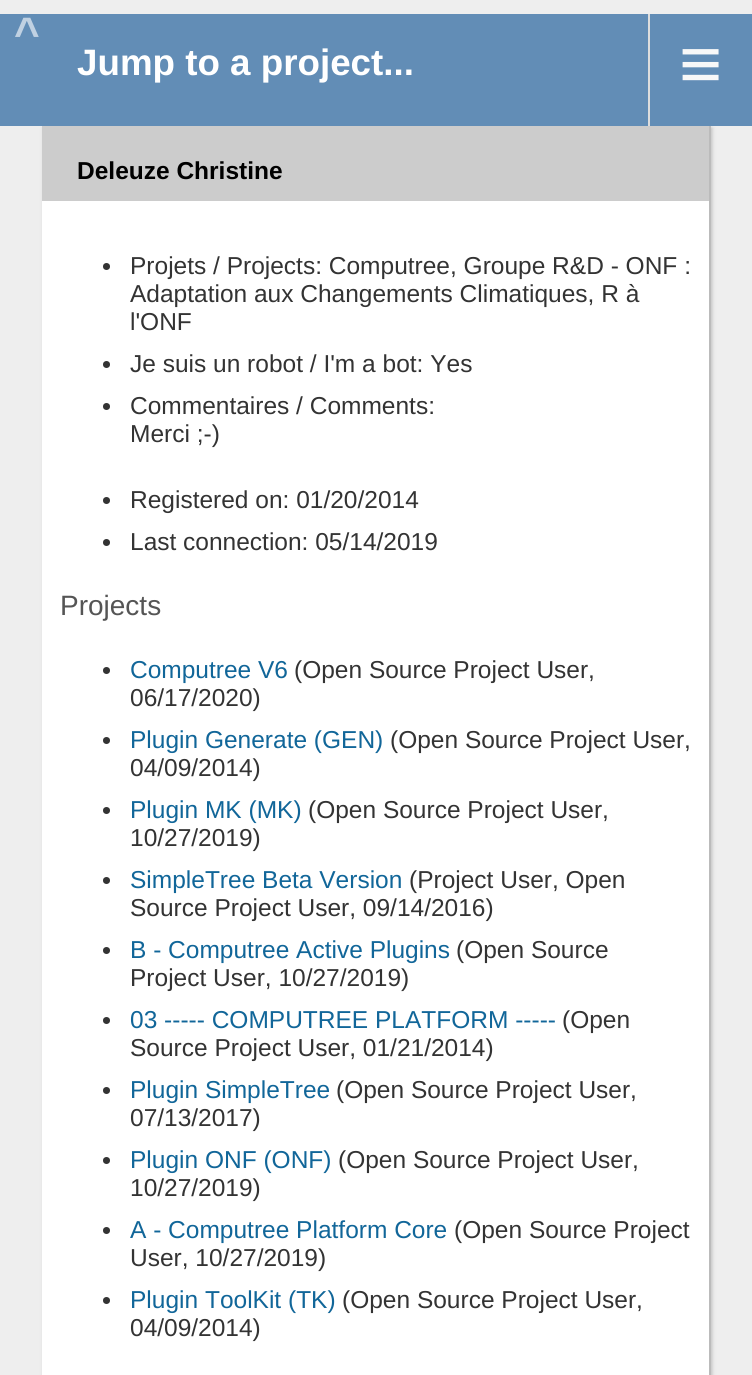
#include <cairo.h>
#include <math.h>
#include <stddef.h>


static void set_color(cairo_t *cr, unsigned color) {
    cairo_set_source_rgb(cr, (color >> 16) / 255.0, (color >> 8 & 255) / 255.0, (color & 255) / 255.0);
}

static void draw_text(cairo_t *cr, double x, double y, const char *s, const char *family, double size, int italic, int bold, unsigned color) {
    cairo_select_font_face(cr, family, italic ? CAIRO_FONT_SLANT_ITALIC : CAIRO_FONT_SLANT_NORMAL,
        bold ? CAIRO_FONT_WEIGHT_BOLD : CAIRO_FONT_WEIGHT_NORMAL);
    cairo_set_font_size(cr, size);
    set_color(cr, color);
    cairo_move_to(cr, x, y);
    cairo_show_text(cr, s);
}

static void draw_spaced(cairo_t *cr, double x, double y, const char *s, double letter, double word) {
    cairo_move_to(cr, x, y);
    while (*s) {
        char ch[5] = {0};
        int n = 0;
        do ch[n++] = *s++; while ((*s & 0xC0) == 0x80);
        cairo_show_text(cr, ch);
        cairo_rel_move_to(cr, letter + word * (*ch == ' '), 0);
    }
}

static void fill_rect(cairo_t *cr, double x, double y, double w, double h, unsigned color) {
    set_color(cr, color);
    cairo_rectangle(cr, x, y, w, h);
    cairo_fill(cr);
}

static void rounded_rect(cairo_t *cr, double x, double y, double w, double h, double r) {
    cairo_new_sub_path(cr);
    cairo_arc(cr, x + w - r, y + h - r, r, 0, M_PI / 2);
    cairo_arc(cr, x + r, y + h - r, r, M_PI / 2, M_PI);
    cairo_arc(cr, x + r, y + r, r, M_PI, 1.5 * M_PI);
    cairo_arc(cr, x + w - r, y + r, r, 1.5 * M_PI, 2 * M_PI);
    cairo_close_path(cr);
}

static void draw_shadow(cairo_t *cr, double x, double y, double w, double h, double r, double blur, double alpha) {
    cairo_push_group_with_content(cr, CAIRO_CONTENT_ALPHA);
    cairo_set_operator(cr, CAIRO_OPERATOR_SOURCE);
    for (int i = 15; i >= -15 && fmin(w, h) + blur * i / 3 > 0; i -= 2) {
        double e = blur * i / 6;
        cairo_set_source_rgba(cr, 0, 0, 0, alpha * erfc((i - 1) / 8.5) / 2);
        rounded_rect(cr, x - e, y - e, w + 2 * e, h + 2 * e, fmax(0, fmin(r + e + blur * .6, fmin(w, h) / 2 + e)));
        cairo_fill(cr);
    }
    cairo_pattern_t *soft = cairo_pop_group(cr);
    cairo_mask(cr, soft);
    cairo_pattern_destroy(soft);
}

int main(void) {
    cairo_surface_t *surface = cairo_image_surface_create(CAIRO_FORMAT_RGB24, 752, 1375);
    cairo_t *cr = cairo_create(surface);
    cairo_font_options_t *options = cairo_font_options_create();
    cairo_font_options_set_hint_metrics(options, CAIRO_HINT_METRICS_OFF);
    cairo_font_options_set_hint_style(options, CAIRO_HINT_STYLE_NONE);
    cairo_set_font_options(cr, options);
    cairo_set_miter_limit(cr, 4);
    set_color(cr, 0xEEEEEE);
    cairo_paint(cr);
    set_color(cr, 0xBBBBBB);
    draw_shadow(cr, 44, 128, 668, 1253, 0, 2, 1);
    fill_rect(cr, 0, 14, 752, 112, 0x628DB6);
    cairo_select_font_face(cr, "Liberation Sans", CAIRO_FONT_SLANT_NORMAL, CAIRO_FONT_WEIGHT_BOLD);
    cairo_set_font_size(cr, 44);
    set_color(cr, 0xC0D1E2);
    draw_spaced(cr, 14, 48, "^", 6, 0);
    draw_text(cr, 77, 75, "Jump to a project...", "Liberation Sans", 36.75, 0, 1, 0xFFFFFF);
    fill_rect(cr, 648, 14, 2, 112, 0xDDDDDD);
    draw_text(cr, 679, 89, "≡", "Liberation Sans", 74, 0, 0, 0xF8F8F8);
    fill_rect(cr, 42, 201, 667, 1174, 0xFFFFFF);
    fill_rect(cr, 709, 126, 2, 1249, 0xBBBBBB);
    fill_rect(cr, 42, 126, 667, 75, 0xCCCCCC);
    draw_text(cr, 77, 179, "Deleuze Christine", "Liberation Sans", 24.5, 0, 1, 0x000000);
    set_color(cr, 0x333333);
    cairo_new_path(cr);
    cairo_arc(cr, 106.5, 266.5, 3.5, 0, 2 * M_PI);
    cairo_fill(cr);
    draw_text(cr, 130, 274, "Projets / Projects: Computree, Groupe R&D - ONF :", "Liberation Sans", 24.5, 0, 0, 0x333333);
    draw_text(cr, 130, 302, "Adaptation aux Changements Climatiques, R à", "Liberation Sans", 24.5, 0, 0, 0x333333);
    draw_text(cr, 130, 330, "l'ONF", "Liberation Sans", 24.5, 0, 0, 0x333333);
    cairo_new_path(cr);
    cairo_arc(cr, 106.5, 364.5, 3.5, 0, 2 * M_PI);
    cairo_fill(cr);
    draw_text(cr, 130, 372, "Je suis un robot / I'm a bot: Yes", "Liberation Sans", 24.5, 0, 0, 0x333333);
    cairo_new_path(cr);
    cairo_arc(cr, 106.5, 406.5, 3.5, 0, 2 * M_PI);
    cairo_fill(cr);
    draw_text(cr, 130, 414, "Commentaires / Comments:", "Liberation Sans", 24.5, 0, 0, 0x333333);
    draw_text(cr, 130, 442, "Merci ;-)", "Liberation Sans", 24.5, 0, 0, 0x333333);
    cairo_new_path(cr);
    cairo_arc(cr, 106.5, 500.5, 3.5, 0, 2 * M_PI);
    cairo_fill(cr);
    draw_text(cr, 130, 508, "Registered on: 01/20/2014", "Liberation Sans", 24.5, 0, 0, 0x333333);
    cairo_new_path(cr);
    cairo_arc(cr, 106.5, 542.5, 3.5, 0, 2 * M_PI);
    cairo_fill(cr);
    draw_text(cr, 130, 550, "Last connection: 05/14/2019", "Liberation Sans", 24.5, 0, 0, 0x333333);
    draw_text(cr, 60, 615, "Projects", "Liberation Sans", 28, 0, 0, 0x555555);
    set_color(cr, 0x333333);
    cairo_new_path(cr);
    cairo_arc(cr, 106.5, 670.5, 3.5, 0, 2 * M_PI);
    cairo_fill(cr);
    draw_text(cr, 130, 678, "Computree V6", "Liberation Sans", 24.5, 0, 0, 0x116699);
    draw_text(cr, 294, 678, "(Open Source Project User,", "Liberation Sans", 24.5, 0, 0, 0x333333);
    draw_text(cr, 130, 706, "06/17/2020)", "Liberation Sans", 24.5, 0, 0, 0x333333);
    cairo_new_path(cr);
    cairo_arc(cr, 106.5, 740.5, 3.5, 0, 2 * M_PI);
    cairo_fill(cr);
    draw_text(cr, 130, 748, "Plugin Generate (GEN)", "Liberation Sans", 24.5, 0, 0, 0x116699);
    draw_text(cr, 390, 748, "(Open Source Project User,", "Liberation Sans", 24.5, 0, 0, 0x333333);
    draw_text(cr, 130, 776, "04/09/2014)", "Liberation Sans", 24.5, 0, 0, 0x333333);
    cairo_new_path(cr);
    cairo_arc(cr, 106.5, 810.5, 3.5, 0, 2 * M_PI);
    cairo_fill(cr);
    draw_text(cr, 130, 818, "Plugin MK (MK)", "Liberation Sans", 24.5, 0, 0, 0x116699);
    draw_text(cr, 308, 818, "(Open Source Project User,", "Liberation Sans", 24.5, 0, 0, 0x333333);
    draw_text(cr, 130, 846, "10/27/2019)", "Liberation Sans", 24.5, 0, 0, 0x333333);
    cairo_new_path(cr);
    cairo_arc(cr, 106.5, 880.5, 3.5, 0, 2 * M_PI);
    cairo_fill(cr);
    draw_text(cr, 130, 888, "SimpleTree Beta Version", "Liberation Sans", 24.5, 0, 0, 0x116699);
    draw_text(cr, 409, 888, "(Project User, Open", "Liberation Sans", 24.5, 0, 0, 0x333333);
    draw_text(cr, 130, 916, "Source Project User, 09/14/2016)", "Liberation Sans", 24.5, 0, 0, 0x333333);
    cairo_new_path(cr);
    cairo_arc(cr, 106.5, 950.5, 3.5, 0, 2 * M_PI);
    cairo_fill(cr);
    draw_text(cr, 130, 958, "B - Computree Active Plugins", "Liberation Sans", 24.5, 0, 0, 0x116699);
    draw_text(cr, 456, 958, "(Open Source", "Liberation Sans", 24.5, 0, 0, 0x333333);
    draw_text(cr, 130, 986, "Project User, 10/27/2019)", "Liberation Sans", 24.5, 0, 0, 0x333333);
    cairo_new_path(cr);
    cairo_arc(cr, 106.5, 1020.5, 3.5, 0, 2 * M_PI);
    cairo_fill(cr);
    draw_text(cr, 130, 1028, "03 ----- COMPUTREE PLATFORM -----", "Liberation Sans", 24.5, 0, 0, 0x116699);
    draw_text(cr, 562, 1028, "(Open", "Liberation Sans", 24.5, 0, 0, 0x333333);
    draw_text(cr, 130, 1056, "Source Project User, 01/21/2014)", "Liberation Sans", 24.5, 0, 0, 0x333333);
    cairo_new_path(cr);
    cairo_arc(cr, 106.5, 1090.5, 3.5, 0, 2 * M_PI);
    cairo_fill(cr);
    draw_text(cr, 130, 1098, "Plugin SimpleTree", "Liberation Sans", 24.5, 0, 0, 0x116699);
    draw_text(cr, 336, 1098, "(Open Source Project User,", "Liberation Sans", 24.5, 0, 0, 0x333333);
    draw_text(cr, 130, 1126, "07/13/2017)", "Liberation Sans", 24.5, 0, 0, 0x333333);
    cairo_new_path(cr);
    cairo_arc(cr, 106.5, 1160.5, 3.5, 0, 2 * M_PI);
    cairo_fill(cr);
    draw_text(cr, 130, 1168, "Plugin ONF (ONF)", "Liberation Sans", 24.5, 0, 0, 0x116699);
    draw_text(cr, 338, 1168, "(Open Source Project User,", "Liberation Sans", 24.5, 0, 0, 0x333333);
    draw_text(cr, 130, 1196, "10/27/2019)", "Liberation Sans", 24.5, 0, 0, 0x333333);
    cairo_new_path(cr);
    cairo_arc(cr, 106.5, 1230.5, 3.5, 0, 2 * M_PI);
    cairo_fill(cr);
    draw_text(cr, 130, 1238, "A - Computree Platform Core", "Liberation Sans", 24.5, 0, 0, 0x116699);
    draw_text(cr, 454, 1238, "(Open Source Project", "Liberation Sans", 24.5, 0, 0, 0x333333);
    draw_text(cr, 130, 1266, "User, 10/27/2019)", "Liberation Sans", 24.5, 0, 0, 0x333333);
    cairo_new_path(cr);
    cairo_arc(cr, 106.5, 1300.5, 3.5, 0, 2 * M_PI);
    cairo_fill(cr);
    draw_text(cr, 130, 1308, "Plugin ToolKit (TK)", "Liberation Sans", 24.5, 0, 0, 0x116699);
    draw_text(cr, 342, 1308, "(Open Source Project User,", "Liberation Sans", 24.5, 0, 0, 0x333333);
    draw_text(cr, 130, 1336, "04/09/2014)", "Liberation Sans", 24.5, 0, 0, 0x333333);
    cairo_surface_write_to_png(surface, "output.png");
    cairo_font_options_destroy(options);
    cairo_destroy(cr);
    cairo_surface_destroy(surface);
    return 0;
}
